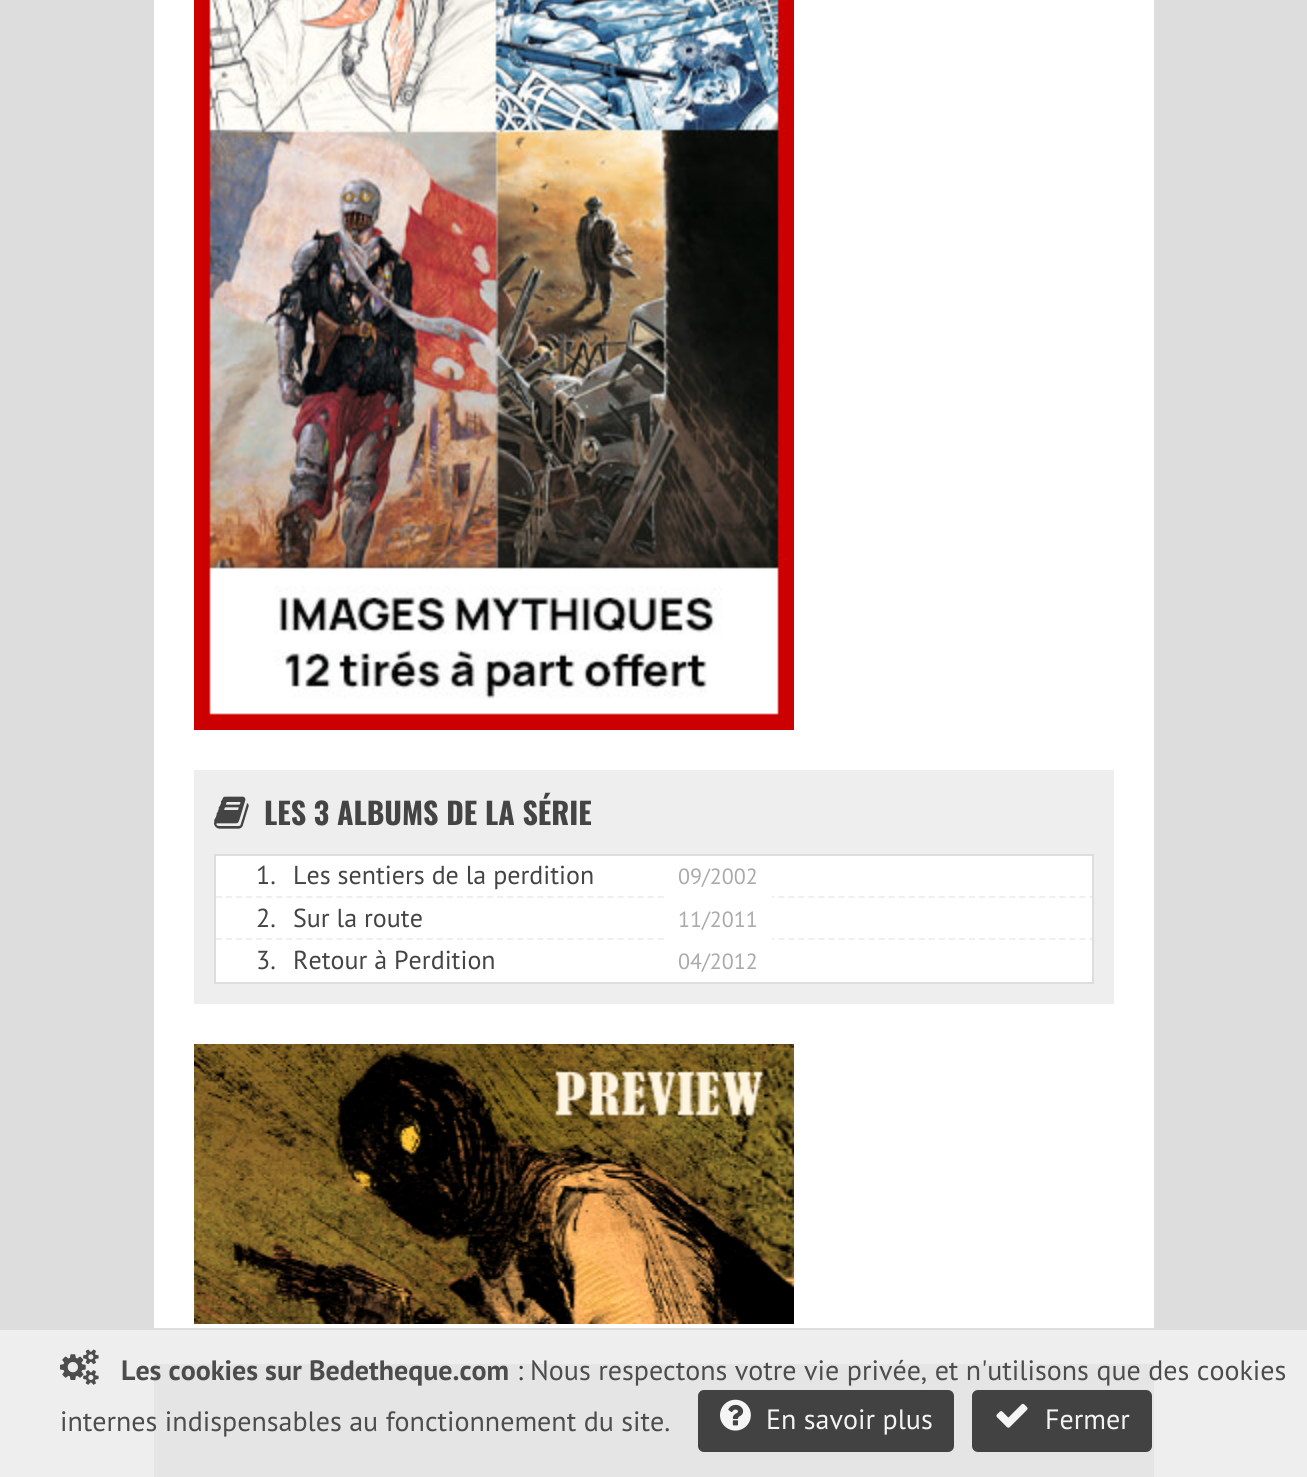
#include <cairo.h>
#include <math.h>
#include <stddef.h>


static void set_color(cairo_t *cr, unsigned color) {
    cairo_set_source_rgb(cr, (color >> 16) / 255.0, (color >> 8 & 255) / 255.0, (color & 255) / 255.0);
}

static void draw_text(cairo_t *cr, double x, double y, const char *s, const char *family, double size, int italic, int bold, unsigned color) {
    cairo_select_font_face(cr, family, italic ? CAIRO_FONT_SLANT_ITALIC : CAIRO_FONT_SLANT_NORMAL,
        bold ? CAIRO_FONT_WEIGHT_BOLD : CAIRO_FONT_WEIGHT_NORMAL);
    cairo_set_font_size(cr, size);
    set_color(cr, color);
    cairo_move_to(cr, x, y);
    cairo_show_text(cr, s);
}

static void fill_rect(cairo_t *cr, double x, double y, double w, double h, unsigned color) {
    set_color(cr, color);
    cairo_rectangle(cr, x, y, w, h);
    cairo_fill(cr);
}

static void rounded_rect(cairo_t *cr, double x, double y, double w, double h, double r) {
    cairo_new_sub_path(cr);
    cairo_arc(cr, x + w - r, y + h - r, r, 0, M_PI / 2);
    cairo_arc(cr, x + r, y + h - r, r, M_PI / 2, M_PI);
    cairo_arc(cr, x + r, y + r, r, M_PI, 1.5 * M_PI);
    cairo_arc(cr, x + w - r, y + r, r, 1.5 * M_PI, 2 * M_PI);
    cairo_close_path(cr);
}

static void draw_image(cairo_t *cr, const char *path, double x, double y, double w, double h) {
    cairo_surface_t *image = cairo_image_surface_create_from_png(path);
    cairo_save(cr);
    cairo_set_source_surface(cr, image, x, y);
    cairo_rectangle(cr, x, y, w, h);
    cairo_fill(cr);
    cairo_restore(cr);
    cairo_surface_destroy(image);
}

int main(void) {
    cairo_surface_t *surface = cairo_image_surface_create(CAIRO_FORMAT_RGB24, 1307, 1477);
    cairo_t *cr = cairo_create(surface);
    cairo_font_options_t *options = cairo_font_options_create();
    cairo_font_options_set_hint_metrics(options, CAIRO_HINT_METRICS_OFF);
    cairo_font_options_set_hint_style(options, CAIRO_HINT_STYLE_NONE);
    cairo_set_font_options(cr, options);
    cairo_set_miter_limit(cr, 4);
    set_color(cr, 0xDDDDDD);
    cairo_paint(cr);
    fill_rect(cr, 0, 1330, 1307, 147, 0xEEEEEE);
    fill_rect(cr, 154, 0, 1000, 1328, 0xFFFFFF);
    draw_image(cr, "assets/img1.png", 194, 0, 600, 730);
    fill_rect(cr, 194, 770, 920, 234, 0xEEEEEE);
    draw_image(cr, "assets/img2.png", 214, 796, 35, 33);
    draw_text(cr, 264, 825, "LES 3 ALBUMS DE LA SÉRIE", "Oswald", 30, 0, 1, 0x444444);
    cairo_rectangle(cr, 215, 855, 878, 128);
    set_color(cr, 0xDDDDDD);
    cairo_stroke(cr);
    fill_rect(cr, 216, 856, 876, 126, 0xFFFFFF);
    cairo_save(cr);
    cairo_rectangle(cr, 216, 856, 876, 126);
    cairo_clip(cr);
    cairo_new_path(cr);
    cairo_move_to(cr, 216, 897);
    cairo_line_to(cr, 1216, 897);
    set_color(cr, 0xEFEFEF);
    cairo_set_dash(cr, (double[]){6, 4.04}, 2, 0);
    cairo_stroke(cr);
    cairo_restore(cr);
    draw_text(cr, 256, 884, "1.", "PT Sans", 26, 0, 0, 0x444444);
    draw_text(cr, 293, 884, "Les sentiers de la perdition", "PT Sans", 26, 0, 0, 0x444444);
    fill_rect(cr, 667, 896, 105, 2, 0xFFFFFF);
    draw_text(cr, 678, 884, "09/2002", "PT Sans", 22, 0, 0, 0xAAAAAA);
    cairo_save(cr);
    cairo_rectangle(cr, 216, 856, 876, 126);
    cairo_clip(cr);
    cairo_new_path(cr);
    cairo_move_to(cr, 216, 939);
    cairo_line_to(cr, 1216, 939);
    set_color(cr, 0xEFEFEF);
    cairo_set_dash(cr, (double[]){6, 4.04}, 2, 0);
    cairo_stroke(cr);
    cairo_restore(cr);
    draw_text(cr, 256, 927, "2.", "PT Sans", 26, 0, 0, 0x444444);
    draw_text(cr, 293, 927, "Sur la route", "PT Sans", 26, 0, 0, 0x444444);
    fill_rect(cr, 667, 938, 105, 2, 0xFFFFFF);
    draw_text(cr, 678, 927, "11/2011", "PT Sans", 22, 0, 0, 0xAAAAAA);
    draw_text(cr, 256, 969, "3.", "PT Sans", 26, 0, 0, 0x444444);
    draw_text(cr, 293, 969, "Retour à Perdition", "PT Sans", 26, 0, 0, 0x444444);
    draw_text(cr, 678, 969, "04/2012", "PT Sans", 22, 0, 0, 0xAAAAAA);
    draw_image(cr, "assets/img3.png", 194, 1044, 600, 280);
    fill_rect(cr, 154, 1364, 1000, 113, 0xE5E5E5);
    draw_image(cr, "assets/img4.png", 60, 1349, 39, 36);
    draw_text(cr, 121, 1380, "Les cookies sur Bedetheque.com", "PT Sans", 28, 0, 1, 0x4C4C4C);
    draw_text(cr, 517, 1380, ":", "PT Sans", 28, 0, 0, 0x444444);
    draw_text(cr, 530, 1380, "Nous respectons votre vie privée, et n'utilisons que des cookies", "PT Sans", 28, 0, 0, 0x4C4C4C);
    draw_text(cr, 60, 1431, "internes indispensables au fonctionnement du site.", "PT Sans", 28, 0, 0, 0x4C4C4C);
    set_color(cr, 0x424242);
    rounded_rect(cr, 699, 1391, 254, 60, 5);
    cairo_fill_preserve(cr);
    cairo_stroke(cr);
    draw_image(cr, "assets/img5.png", 720, 1399, 31, 32);
    draw_text(cr, 766, 1429, "En savoir plus", "PT Sans", 28, 0, 0, 0xF4F4F4);
    set_color(cr, 0x424242);
    rounded_rect(cr, 973, 1391, 178, 60, 5);
    cairo_fill_preserve(cr);
    cairo_stroke(cr);
    draw_image(cr, "assets/img6.png", 996, 1403, 32, 25);
    draw_text(cr, 1045, 1429, "Fermer", "PT Sans", 28, 0, 0, 0xF4F4F4);
    cairo_surface_write_to_png(surface, "output.png");
    cairo_font_options_destroy(options);
    cairo_destroy(cr);
    cairo_surface_destroy(surface);
    return 0;
}
